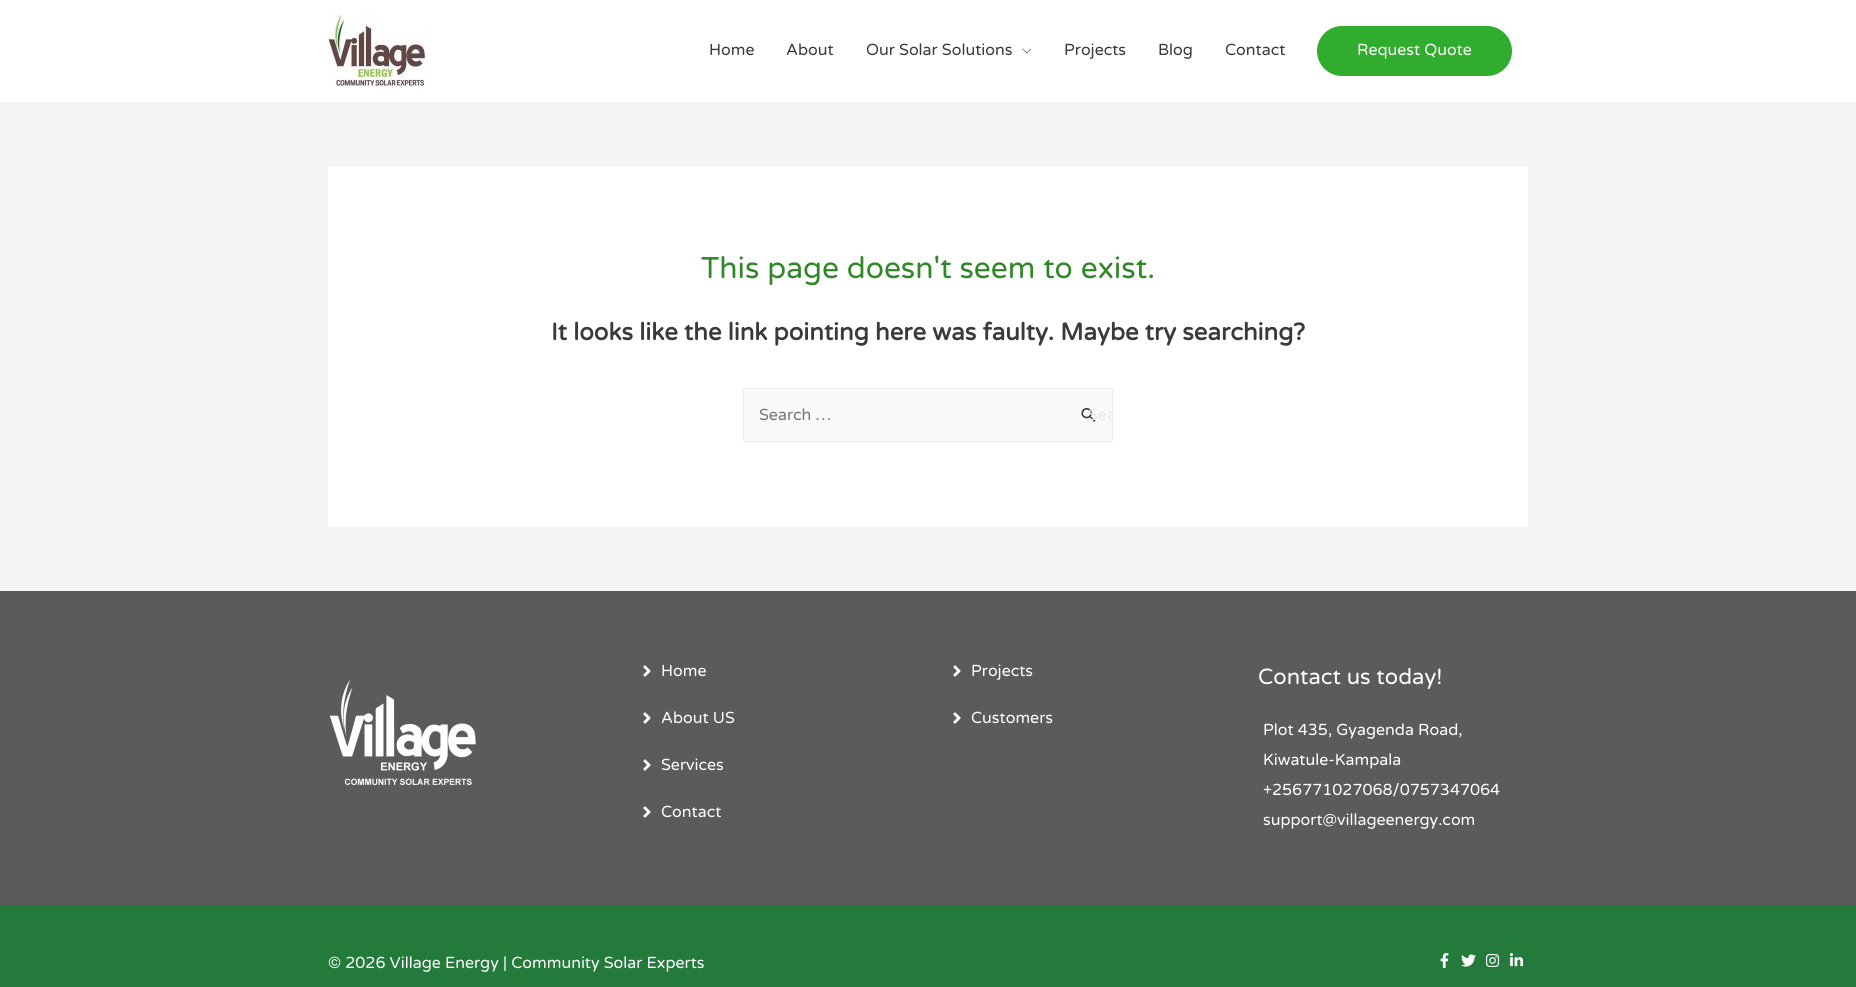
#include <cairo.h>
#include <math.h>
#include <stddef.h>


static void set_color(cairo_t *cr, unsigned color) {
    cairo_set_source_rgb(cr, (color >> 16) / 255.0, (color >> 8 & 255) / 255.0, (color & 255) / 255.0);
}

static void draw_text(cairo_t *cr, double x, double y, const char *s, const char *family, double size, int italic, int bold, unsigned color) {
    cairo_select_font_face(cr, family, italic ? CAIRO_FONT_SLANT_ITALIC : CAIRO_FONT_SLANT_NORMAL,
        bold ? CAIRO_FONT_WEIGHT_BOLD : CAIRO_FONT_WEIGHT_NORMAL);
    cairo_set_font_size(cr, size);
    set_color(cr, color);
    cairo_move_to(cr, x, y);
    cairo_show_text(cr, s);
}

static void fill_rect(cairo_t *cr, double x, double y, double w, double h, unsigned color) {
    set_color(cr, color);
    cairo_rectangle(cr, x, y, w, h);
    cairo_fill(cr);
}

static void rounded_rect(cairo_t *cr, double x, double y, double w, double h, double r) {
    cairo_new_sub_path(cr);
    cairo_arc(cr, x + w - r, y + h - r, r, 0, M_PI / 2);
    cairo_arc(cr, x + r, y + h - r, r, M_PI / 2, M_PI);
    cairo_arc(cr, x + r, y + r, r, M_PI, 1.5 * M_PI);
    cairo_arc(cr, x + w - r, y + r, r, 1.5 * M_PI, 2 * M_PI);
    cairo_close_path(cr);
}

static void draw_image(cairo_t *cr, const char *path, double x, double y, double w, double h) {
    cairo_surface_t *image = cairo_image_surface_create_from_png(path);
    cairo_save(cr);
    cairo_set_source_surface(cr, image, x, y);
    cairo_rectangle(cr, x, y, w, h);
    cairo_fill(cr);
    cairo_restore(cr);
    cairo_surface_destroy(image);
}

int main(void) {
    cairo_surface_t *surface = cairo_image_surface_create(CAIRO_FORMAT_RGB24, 1856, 987);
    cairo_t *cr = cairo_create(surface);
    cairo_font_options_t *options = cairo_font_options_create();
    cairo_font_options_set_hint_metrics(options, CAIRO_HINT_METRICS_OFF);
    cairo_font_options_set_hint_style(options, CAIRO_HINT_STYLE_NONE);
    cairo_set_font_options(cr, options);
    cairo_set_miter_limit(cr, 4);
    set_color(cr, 0xF5F5F5);
    cairo_paint(cr);
    fill_rect(cr, 0, 0, 1856, 102, 0xFFFFFF);
    draw_image(cr, "assets/img1.png", 328, 14, 98, 72);
    draw_text(cr, 709, 55, "Home", "Varela Round", 16, 0, 0, 0x3A3A3A);
    draw_text(cr, 786, 55, "About", "Varela Round", 16, 0, 0, 0x3A3A3A);
    draw_text(cr, 866, 55, "Our Solar Solutions", "Varela Round", 16, 0, 0, 0x3A3A3A);
    draw_image(cr, "assets/img2.png", 1022, 48, 9, 6);
    draw_text(cr, 1064, 55, "Projects", "Varela Round", 16, 0, 0, 0x3A3A3A);
    draw_text(cr, 1158, 55, "Blog", "Varela Round", 16, 0, 0, 0x3A3A3A);
    draw_text(cr, 1225, 55, "Contact", "Varela Round", 16, 0, 0, 0x3A3A3A);
    set_color(cr, 0x30AD2E);
    rounded_rect(cr, 1317, 26, 195, 50, 25);
    cairo_fill(cr);
    draw_text(cr, 1357, 55, "Request Quote", "Varela Round", 16, 0, 0, 0xFFFFFF);
    fill_rect(cr, 328, 166, 1200, 361, 0xFFFFFF);
    draw_text(cr, 701, 278, "This page doesn't seem to exist.", "Varela Round", 30, 0, 0, 0x308728);
    draw_text(cr, 551, 340, "It looks like the link pointing here was faulty. Maybe try searching?", "Varela Round", 24, 0, 1, 0x3A3A3A);
    set_color(cr, 0xFAFAFA);
    rounded_rect(cr, 743.5, 388.5, 369, 53, 1.5);
    cairo_fill_preserve(cr);
    set_color(cr, 0xEAEAEA);
    cairo_set_line_width(cr, 1);
    cairo_stroke(cr);
    draw_text(cr, 759, 420, "Search …", "Varela Round", 16, 0, 0, 0x757575);
    draw_image(cr, "assets/img3.png", 1081, 408, 15, 14);
    cairo_save(cr);
    rounded_rect(cr, 1068, 388, 45, 56, 2);
    cairo_clip(cr);
    draw_text(cr, 1088, 420, "Sea", "Varela Round", 16, 0, 0, 0xE9E9E9);
    cairo_restore(cr);
    fill_rect(cr, 0, 591, 1856, 314, 0x5B5B5B);
    draw_image(cr, "assets/img4.png", 329, 680, 147, 106);
    draw_image(cr, "assets/img5.png", 643, 665, 8, 12);
    draw_text(cr, 661, 676, "Home", "Varela Round", 16, 0, 0, 0xFFFFFF);
    draw_image(cr, "assets/img5.png", 643, 712, 8, 12);
    draw_text(cr, 661, 723, "About US", "Varela Round", 16, 0, 0, 0xFFFFFF);
    draw_image(cr, "assets/img5.png", 643, 759, 8, 12);
    draw_text(cr, 661, 770, "Services", "Varela Round", 16, 0, 0, 0xFFFFFF);
    draw_image(cr, "assets/img5.png", 643, 806, 8, 12);
    draw_text(cr, 661, 817, "Contact", "Varela Round", 16, 0, 0, 0xFFFFFF);
    draw_image(cr, "assets/img5.png", 953, 665, 8, 12);
    draw_text(cr, 971, 676, "Projects", "Varela Round", 16, 0, 0, 0xFFFFFF);
    draw_image(cr, "assets/img5.png", 953, 712, 8, 12);
    draw_text(cr, 971, 723, "Customers", "Varela Round", 16, 0, 0, 0xFFFFFF);
    draw_text(cr, 1258, 684, "Contact us today!", "Varela Round", 22, 0, 0, 0xFFFFFF);
    draw_text(cr, 1263, 735, "Plot 435, Gyagenda Road,", "Varela Round", 16, 0, 0, 0xFFFFFF);
    draw_text(cr, 1263, 765, "Kiwatule-Kampala", "Varela Round", 16, 0, 0, 0xFFFFFF);
    draw_text(cr, 1263, 795, "+256771027068/0757347064", "Varela Round", 16, 0, 0, 0xFFFFFF);
    draw_text(cr, 1263, 825, "support@villageenergy.com", "Varela Round", 16, 0, 0, 0xFFFFFF);
    fill_rect(cr, 0, 905, 1856, 1, 0x1C7529);
    fill_rect(cr, 0, 906, 1856, 81, 0x247A3A);
    draw_text(cr, 328, 968, "© 2026 Village Energy | Community Solar Experts", "Varela Round", 16, 0, 0, 0xFFFFFF);
    draw_image(cr, "assets/img6.png", 1440, 953, 9, 15);
    draw_image(cr, "assets/img7.png", 1461, 954, 15, 13);
    draw_image(cr, "assets/img8.png", 1486, 954, 14, 13);
    draw_image(cr, "assets/img9.png", 1510, 953, 14, 14);
    cairo_surface_write_to_png(surface, "output.png");
    cairo_font_options_destroy(options);
    cairo_destroy(cr);
    cairo_surface_destroy(surface);
    return 0;
}
